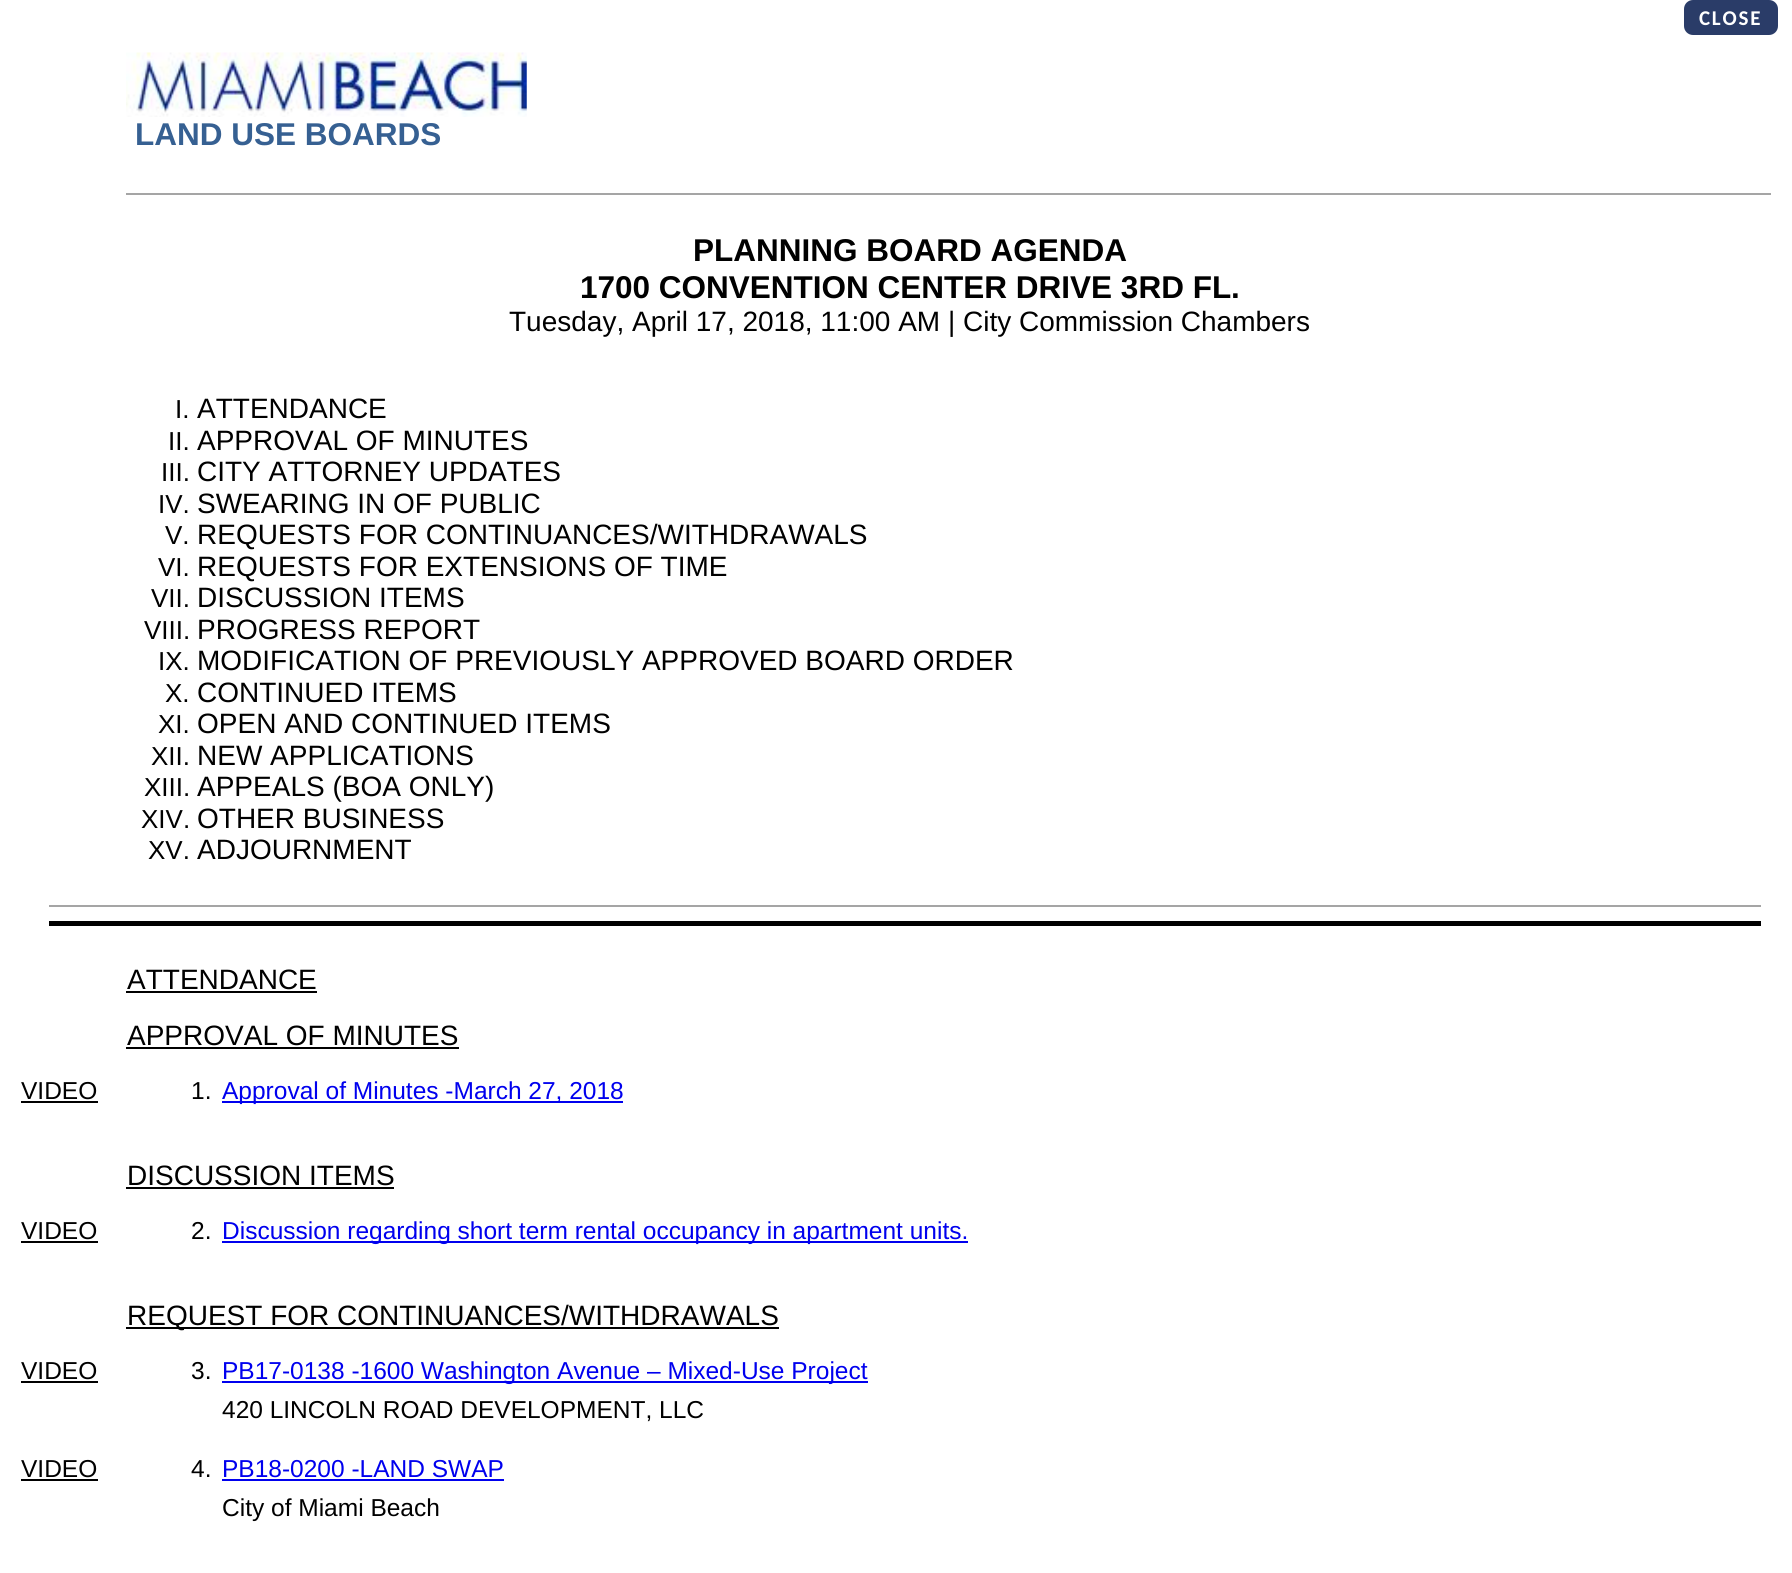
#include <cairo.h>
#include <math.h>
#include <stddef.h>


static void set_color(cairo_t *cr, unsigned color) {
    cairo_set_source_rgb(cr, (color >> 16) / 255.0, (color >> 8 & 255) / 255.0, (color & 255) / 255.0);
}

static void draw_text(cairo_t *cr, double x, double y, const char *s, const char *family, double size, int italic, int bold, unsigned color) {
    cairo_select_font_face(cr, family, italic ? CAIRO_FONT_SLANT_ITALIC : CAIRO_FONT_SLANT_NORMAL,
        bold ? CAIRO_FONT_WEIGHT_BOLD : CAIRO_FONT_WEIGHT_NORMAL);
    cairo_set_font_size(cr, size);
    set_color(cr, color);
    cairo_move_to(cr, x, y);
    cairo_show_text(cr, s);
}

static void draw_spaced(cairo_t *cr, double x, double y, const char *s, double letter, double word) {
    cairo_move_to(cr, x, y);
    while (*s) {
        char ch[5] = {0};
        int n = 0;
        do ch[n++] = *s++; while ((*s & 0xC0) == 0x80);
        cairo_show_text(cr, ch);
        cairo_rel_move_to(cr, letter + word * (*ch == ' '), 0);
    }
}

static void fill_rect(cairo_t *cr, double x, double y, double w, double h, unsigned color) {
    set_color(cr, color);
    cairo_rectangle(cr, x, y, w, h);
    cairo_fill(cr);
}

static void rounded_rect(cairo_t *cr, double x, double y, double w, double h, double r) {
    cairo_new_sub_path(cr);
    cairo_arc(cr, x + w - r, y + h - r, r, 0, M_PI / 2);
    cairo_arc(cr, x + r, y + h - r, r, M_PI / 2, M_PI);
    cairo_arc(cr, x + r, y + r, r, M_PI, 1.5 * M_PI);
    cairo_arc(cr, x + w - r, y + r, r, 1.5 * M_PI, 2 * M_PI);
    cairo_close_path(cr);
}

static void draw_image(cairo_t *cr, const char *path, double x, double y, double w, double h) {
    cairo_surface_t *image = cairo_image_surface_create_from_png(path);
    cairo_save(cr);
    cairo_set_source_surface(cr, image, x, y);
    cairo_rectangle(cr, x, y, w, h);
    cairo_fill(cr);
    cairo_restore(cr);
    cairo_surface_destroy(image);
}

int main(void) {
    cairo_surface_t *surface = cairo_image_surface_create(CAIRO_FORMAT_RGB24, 1792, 1573);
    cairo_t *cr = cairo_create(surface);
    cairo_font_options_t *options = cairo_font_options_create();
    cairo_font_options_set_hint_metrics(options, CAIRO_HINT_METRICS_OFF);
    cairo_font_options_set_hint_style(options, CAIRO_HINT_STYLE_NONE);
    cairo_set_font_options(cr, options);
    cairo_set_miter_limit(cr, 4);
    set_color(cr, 0xFFFFFF);
    cairo_paint(cr);
    set_color(cr, 0x2A3C68);
    rounded_rect(cr, 1685, 1, 92, 33, 8);
    cairo_fill_preserve(cr);
    cairo_stroke(cr);
    cairo_select_font_face(cr, "Carlito", CAIRO_FONT_SLANT_NORMAL, CAIRO_FONT_WEIGHT_BOLD);
    cairo_set_font_size(cr, 21);
    set_color(cr, 0xFFFFFF);
    draw_spaced(cr, 1699, 25, "CLOSE", 1.75, 0);
    draw_image(cr, "assets/img1.png", 126, 52, 401, 65);
    draw_text(cr, 135, 145, "LAND USE BOARDS", "Liberation Sans", 31.5, 0, 1, 0x366092);
    fill_rect(cr, 126, 193, 1645, 2, 0xA5A5A5);
    draw_text(cr, 693, 261, "PLANNING BOARD AGENDA", "Liberation Sans", 31.5, 0, 1, 0x000000);
    draw_text(cr, 580, 298, "1700 CONVENTION CENTER DRIVE 3RD FL.", "Liberation Sans", 31.5, 0, 1, 0x000000);
    draw_text(cr, 509, 331, "Tuesday, April 17, 2018, 11:00 AM | City Commission Chambers", "Liberation Sans", 28, 0, 0, 0x000000);
    draw_text(cr, 175, 418, "I.", "Liberation Sans", 26, 0, 0, 0x000000);
    draw_text(cr, 197, 418, "ATTENDANCE", "Liberation Sans", 28, 0, 0, 0x000000);
    draw_text(cr, 168, 450, "II.", "Liberation Sans", 26, 0, 0, 0x000000);
    draw_text(cr, 197, 450, "APPROVAL OF MINUTES", "Liberation Sans", 28, 0, 0, 0x000000);
    draw_text(cr, 161, 481, "III.", "Liberation Sans", 26, 0, 0, 0x000000);
    draw_text(cr, 197, 481, "CITY ATTORNEY UPDATES", "Liberation Sans", 28, 0, 0, 0x000000);
    draw_text(cr, 158, 513, "IV.", "Liberation Sans", 26, 0, 0, 0x000000);
    draw_text(cr, 197, 513, "SWEARING IN OF PUBLIC", "Liberation Sans", 28, 0, 0, 0x000000);
    draw_text(cr, 165, 544, "V.", "Liberation Sans", 26, 0, 0, 0x000000);
    draw_text(cr, 197, 544, "REQUESTS FOR CONTINUANCES/WITHDRAWALS", "Liberation Sans", 28, 0, 0, 0x000000);
    draw_text(cr, 158, 576, "VI.", "Liberation Sans", 26, 0, 0, 0x000000);
    draw_text(cr, 197, 576, "REQUESTS FOR EXTENSIONS OF TIME", "Liberation Sans", 28, 0, 0, 0x000000);
    draw_text(cr, 151, 607, "VII.", "Liberation Sans", 26, 0, 0, 0x000000);
    draw_text(cr, 197, 607, "DISCUSSION ITEMS", "Liberation Sans", 28, 0, 0, 0x000000);
    draw_text(cr, 144, 639, "VIII.", "Liberation Sans", 26, 0, 0, 0x000000);
    draw_text(cr, 197, 639, "PROGRESS REPORT", "Liberation Sans", 28, 0, 0, 0x000000);
    draw_text(cr, 158, 670, "IX.", "Liberation Sans", 26, 0, 0, 0x000000);
    draw_text(cr, 197, 670, "MODIFICATION OF PREVIOUSLY APPROVED BOARD ORDER", "Liberation Sans", 28, 0, 0, 0x000000);
    draw_text(cr, 165, 702, "X.", "Liberation Sans", 26, 0, 0, 0x000000);
    draw_text(cr, 197, 702, "CONTINUED ITEMS", "Liberation Sans", 28, 0, 0, 0x000000);
    draw_text(cr, 158, 733, "XI.", "Liberation Sans", 26, 0, 0, 0x000000);
    draw_text(cr, 197, 733, "OPEN AND CONTINUED ITEMS", "Liberation Sans", 28, 0, 0, 0x000000);
    draw_text(cr, 151, 765, "XII.", "Liberation Sans", 26, 0, 0, 0x000000);
    draw_text(cr, 197, 765, "NEW APPLICATIONS", "Liberation Sans", 28, 0, 0, 0x000000);
    draw_text(cr, 144, 796, "XIII.", "Liberation Sans", 26, 0, 0, 0x000000);
    draw_text(cr, 197, 796, "APPEALS (BOA ONLY)", "Liberation Sans", 28, 0, 0, 0x000000);
    draw_text(cr, 141, 828, "XIV.", "Liberation Sans", 26, 0, 0, 0x000000);
    draw_text(cr, 197, 828, "OTHER BUSINESS", "Liberation Sans", 28, 0, 0, 0x000000);
    draw_text(cr, 148, 859, "XV.", "Liberation Sans", 26, 0, 0, 0x000000);
    draw_text(cr, 197, 859, "ADJOURNMENT", "Liberation Sans", 28, 0, 0, 0x000000);
    fill_rect(cr, 49, 905, 1712, 2, 0xA5A5A5);
    fill_rect(cr, 49, 921, 1712, 5, 0x000000);
    draw_text(cr, 127, 989, "ATTENDANCE", "Liberation Sans", 28, 0, 0, 0x000000);
    fill_rect(cr, 126, 991, 191, 2, 0x000000);
    draw_text(cr, 127, 1045, "APPROVAL OF MINUTES", "Liberation Sans", 28, 0, 0, 0x000000);
    fill_rect(cr, 126, 1047, 333, 2, 0x000000);
    draw_text(cr, 21, 1099, "VIDEO", "Liberation Sans", 24.5, 0, 0, 0x000000);
    fill_rect(cr, 21, 1101, 77, 2, 0x000000);
    draw_text(cr, 191, 1099, "1.", "Liberation Sans", 24.5, 0, 0, 0x000000);
    fill_rect(cr, 222, 1101, 401, 2, 0x0000EE);
    draw_text(cr, 222, 1099, "Approval of Minutes -March 27, 2018", "Liberation Sans", 24.5, 0, 0, 0x0000EE);
    draw_text(cr, 127, 1185, "DISCUSSION ITEMS", "Liberation Sans", 28, 0, 0, 0x000000);
    fill_rect(cr, 126, 1187, 268, 2, 0x000000);
    draw_text(cr, 21, 1239, "VIDEO", "Liberation Sans", 24.5, 0, 0, 0x000000);
    fill_rect(cr, 21, 1241, 77, 2, 0x000000);
    draw_text(cr, 191, 1239, "2.", "Liberation Sans", 24.5, 0, 0, 0x000000);
    fill_rect(cr, 222, 1241, 746, 2, 0x0000EE);
    draw_text(cr, 222, 1239, "Discussion regarding short term rental occupancy in apartment units.", "Liberation Sans", 24.5, 0, 0, 0x0000EE);
    fill_rect(cr, 126, 1327, 653, 2, 0x000000);
    draw_text(cr, 127, 1325, "REQUEST FOR CONTINUANCES/WITHDRAWALS", "Liberation Sans", 28, 0, 0, 0x000000);
    draw_text(cr, 21, 1379, "VIDEO", "Liberation Sans", 24.5, 0, 0, 0x000000);
    fill_rect(cr, 21, 1381, 77, 2, 0x000000);
    draw_text(cr, 191, 1379, "3.", "Liberation Sans", 24.5, 0, 0, 0x000000);
    fill_rect(cr, 222, 1381, 646, 2, 0x0000EE);
    draw_text(cr, 222, 1379, "PB17-0138 -1600 Washington Avenue – Mixed-Use Project", "Liberation Sans", 24.5, 0, 0, 0x0000EE);
    draw_text(cr, 222, 1418, "420 LINCOLN ROAD DEVELOPMENT, LLC", "Liberation Sans", 24.5, 0, 0, 0x000000);
    draw_text(cr, 21, 1477, "VIDEO", "Liberation Sans", 24.5, 0, 0, 0x000000);
    fill_rect(cr, 21, 1479, 77, 2, 0x000000);
    draw_text(cr, 191, 1477, "4.", "Liberation Sans", 24.5, 0, 0, 0x000000);
    draw_text(cr, 222, 1477, "PB18-0200 -LAND SWAP", "Liberation Sans", 24.5, 0, 0, 0x0000EE);
    fill_rect(cr, 222, 1479, 282, 2, 0x0000EE);
    draw_text(cr, 222, 1516, "City of Miami Beach", "Liberation Sans", 24.5, 0, 0, 0x000000);
    cairo_surface_write_to_png(surface, "output.png");
    cairo_font_options_destroy(options);
    cairo_destroy(cr);
    cairo_surface_destroy(surface);
    return 0;
}
